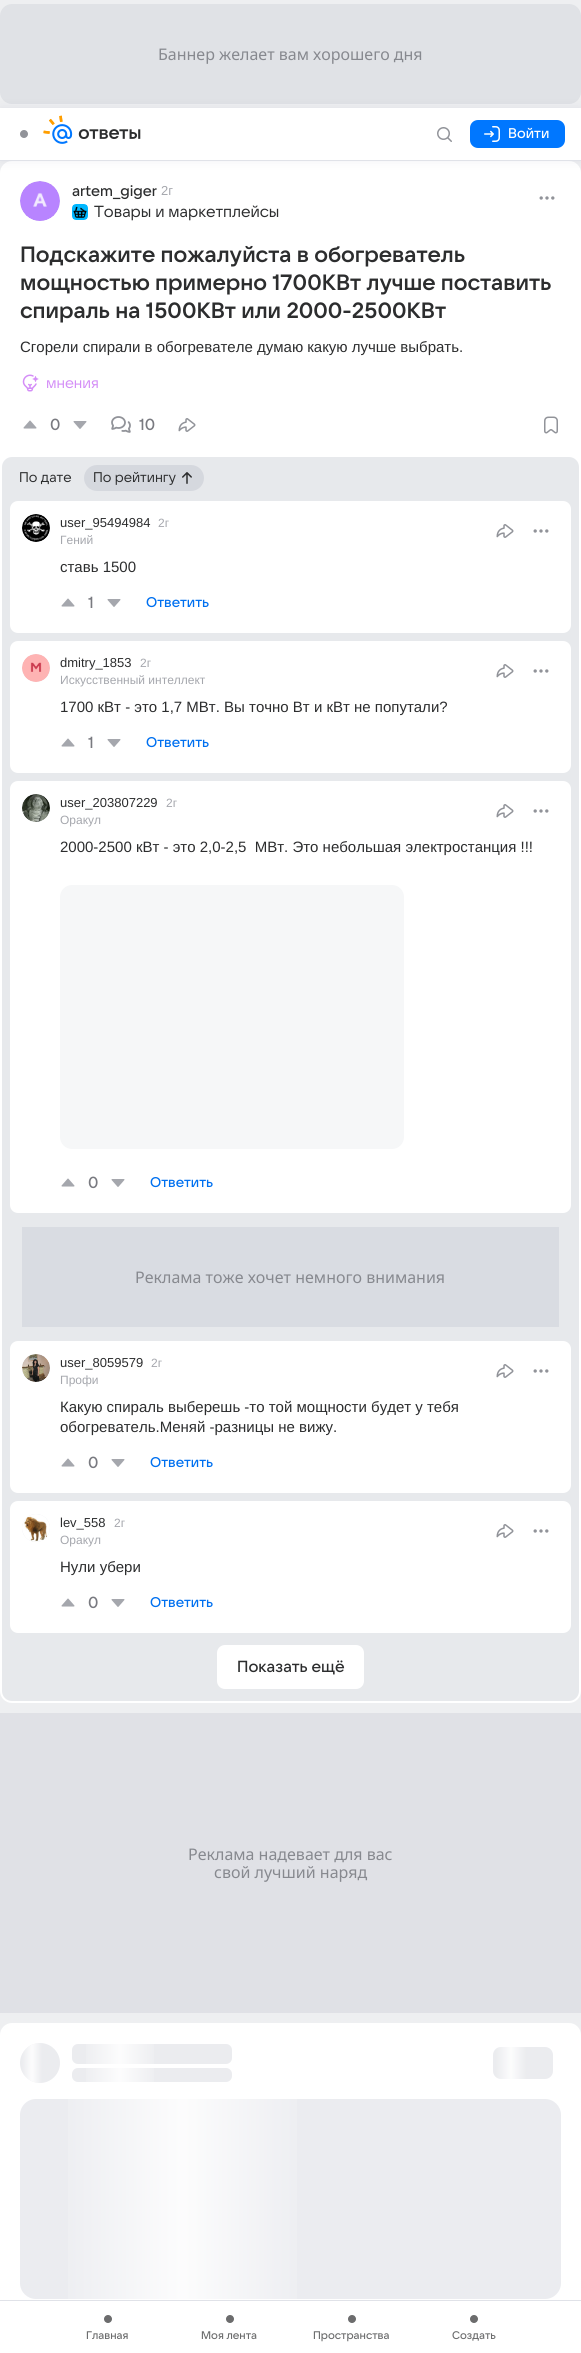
#include <cairo.h>
#include <math.h>
#include <stddef.h>


static void set_color(cairo_t *cr, unsigned color) {
    cairo_set_source_rgb(cr, (color >> 16) / 255.0, (color >> 8 & 255) / 255.0, (color & 255) / 255.0);
}

static void draw_text(cairo_t *cr, double x, double y, const char *s, const char *family, double size, int italic, int bold, unsigned color) {
    cairo_select_font_face(cr, family, italic ? CAIRO_FONT_SLANT_ITALIC : CAIRO_FONT_SLANT_NORMAL,
        bold ? CAIRO_FONT_WEIGHT_BOLD : CAIRO_FONT_WEIGHT_NORMAL);
    cairo_set_font_size(cr, size);
    set_color(cr, color);
    cairo_move_to(cr, x, y);
    cairo_show_text(cr, s);
}

static void fill_rect(cairo_t *cr, double x, double y, double w, double h, unsigned color) {
    set_color(cr, color);
    cairo_rectangle(cr, x, y, w, h);
    cairo_fill(cr);
}

static void rounded_rect(cairo_t *cr, double x, double y, double w, double h, double r) {
    cairo_new_sub_path(cr);
    cairo_arc(cr, x + w - r, y + h - r, r, 0, M_PI / 2);
    cairo_arc(cr, x + r, y + h - r, r, M_PI / 2, M_PI);
    cairo_arc(cr, x + r, y + r, r, M_PI, 1.5 * M_PI);
    cairo_arc(cr, x + w - r, y + r, r, 1.5 * M_PI, 2 * M_PI);
    cairo_close_path(cr);
}

static void draw_shadow(cairo_t *cr, double x, double y, double w, double h, double r, double blur, double alpha) {
    cairo_push_group_with_content(cr, CAIRO_CONTENT_ALPHA);
    cairo_set_operator(cr, CAIRO_OPERATOR_SOURCE);
    for (int i = 15; i >= -15 && fmin(w, h) + blur * i / 3 > 0; i -= 2) {
        double e = blur * i / 6;
        cairo_set_source_rgba(cr, 0, 0, 0, alpha * erfc((i - 1) / 8.5) / 2);
        rounded_rect(cr, x - e, y - e, w + 2 * e, h + 2 * e, fmax(0, fmin(r + e + blur * .6, fmin(w, h) / 2 + e)));
        cairo_fill(cr);
    }
    cairo_pattern_t *soft = cairo_pop_group(cr);
    cairo_mask(cr, soft);
    cairo_pattern_destroy(soft);
}

static void draw_image(cairo_t *cr, const char *path, double x, double y, double w, double h) {
    cairo_surface_t *image = cairo_image_surface_create_from_png(path);
    cairo_save(cr);
    cairo_set_source_surface(cr, image, x, y);
    cairo_rectangle(cr, x, y, w, h);
    cairo_fill(cr);
    cairo_restore(cr);
    cairo_surface_destroy(image);
}

int main(void) {
    cairo_surface_t *surface = cairo_image_surface_create(CAIRO_FORMAT_RGB24, 581, 2353);
    cairo_t *cr = cairo_create(surface);
    cairo_font_options_t *options = cairo_font_options_create();
    cairo_font_options_set_hint_metrics(options, CAIRO_HINT_METRICS_OFF);
    cairo_font_options_set_hint_style(options, CAIRO_HINT_STYLE_NONE);
    cairo_set_font_options(cr, options);
    cairo_set_miter_limit(cr, 4);
    cairo_pattern_t *gradient;
    set_color(cr, 0xEEEFF1);
    cairo_paint(cr);
    set_color(cr, 0xE0E2E6);
    rounded_rect(cr, 0, 4, 581, 100, 12);
    cairo_fill(cr);
    draw_text(cr, 158, 60, "Баннер желает вам хорошего дня", "Noto Sans", 16, 0, 0, 0x87898F);
    set_color(cr, 0xFFFFFF);
    rounded_rect(cr, 0, 161, 581, 1542, 12);
    cairo_fill(cr);
    set_color(cr, 0x00103D);
    draw_shadow(cr, 0, 108, 581, 53, 0, 6, 0.06);
    fill_rect(cr, 0, 108, 581, 52, 0xFFFFFF);
    fill_rect(cr, 0, 160, 581, 1, 0xE0E2E8);
    draw_image(cr, "assets/img1.png", 20, 130, 8, 8);
    draw_image(cr, "assets/img2.png", 43, 115, 98, 29);
    draw_image(cr, "assets/img3.png", 437, 127, 15, 15);
    set_color(cr, 0x0077FF);
    rounded_rect(cr, 470, 120, 95, 28, 8);
    cairo_fill(cr);
    draw_image(cr, "assets/img4.png", 484, 126, 16, 16);
    draw_text(cr, 508, 138, "Войти", "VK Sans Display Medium", 14, 0, 0, 0xFFFFFF);
    set_color(cr, 0xF0F1F3);
    cairo_new_path(cr);
    cairo_arc(cr, 40, 201, 20, 0, 2 * M_PI);
    cairo_fill(cr);
    draw_image(cr, "assets/img5.png", 20, 181, 40, 40);
    draw_text(cr, 72, 196, "artem_giger", "VK Sans Display Medium", 15, 0, 0, 0x2C2D2E);
    draw_text(cr, 161, 195, "2г", "Liberation Sans", 13, 0, 0, 0xA5A7AD);
    draw_image(cr, "assets/img6.png", 72, 204, 16, 16);
    draw_text(cr, 94, 217, "Товары и маркетплейсы", "VK Sans Display", 16, 0, 0, 0x2C2D2E);
    draw_image(cr, "assets/img7.png", 539, 196, 16, 4);
    draw_text(cr, 20, 262, "Подскажите пожалуйста в обогреватель", "VK Sans Display SemiBold", 22, 0, 0, 0x2C2D2E);
    draw_text(cr, 20, 290, "мощностью примерно 1700КВт лучше поставить", "VK Sans Display SemiBold", 22, 0, 0, 0x2C2D2E);
    draw_text(cr, 20, 318, "спираль на 1500КВт или 2000-2500КВт", "VK Sans Display SemiBold", 22, 0, 0, 0x2C2D2E);
    draw_text(cr, 20, 352, "Сгорели спирали в обогревателе думаю какую лучше выбрать.", "Liberation Sans", 15, 0, 0, 0x2C2D2E);
    draw_image(cr, "assets/img8.png", 22, 374, 17, 18);
    draw_text(cr, 46, 388, "мнения", "VK Sans Display", 15, 0, 0, 0xD48EF7);
    draw_image(cr, "assets/img9.png", 23, 420, 14, 9);
    draw_text(cr, 50, 430, "0", "VK Sans Display Medium", 16, 0, 0, 0x797A80);
    draw_image(cr, "assets/img10.png", 73, 421, 14, 8);
    draw_image(cr, "assets/img11.png", 111, 416, 20, 17);
    draw_text(cr, 139, 430, "10", "VK Sans Display Medium", 16, 0, 0, 0x797A80);
    draw_image(cr, "assets/img12.png", 178, 418, 18, 14);
    draw_image(cr, "assets/img13.png", 544, 416, 14, 18);
    set_color(cr, 0xE7E9EC);
    rounded_rect(cr, 2, 457, 577, 1244, 10);
    cairo_fill(cr);
    draw_text(cr, 19, 482, "По дате", "VK Sans Display", 14, 0, 0, 0x2C2D2E);
    set_color(cr, 0xD5D8DE);
    rounded_rect(cr, 84, 465, 120, 26, 13);
    cairo_fill(cr);
    draw_text(cr, 93, 482, "По рейтингу", "VK Sans Display", 14, 0, 0, 0x2C2D2E);
    draw_image(cr, "assets/img14.png", 182, 472, 10, 12);
    set_color(cr, 0xFFFFFF);
    rounded_rect(cr, 10, 501, 561, 132, 8);
    cairo_fill(cr);
    set_color(cr, 0xF0F1F3);
    cairo_arc(cr, 36, 528, 14, 0, 2 * M_PI);
    cairo_fill(cr);
    draw_image(cr, "assets/img15.png", 22, 514, 28, 28);
    draw_text(cr, 60, 527, "user_95494984", "Liberation Sans", 13, 0, 0, 0x2C2D2E);
    draw_text(cr, 60, 544, "Гений", "Liberation Sans", 12, 0, 0, 0xA5A7AD);
    draw_text(cr, 158, 527, "2г", "Liberation Sans", 12, 0, 0, 0xA5A7AD);
    draw_image(cr, "assets/img12.png", 496, 524, 18, 14);
    draw_image(cr, "assets/img7.png", 533, 529, 16, 4);
    draw_text(cr, 60, 572, "ставь 1500", "Liberation Sans", 15, 0, 0, 0x2C2D2E);
    draw_image(cr, "assets/img9.png", 61, 598, 14, 9);
    draw_text(cr, 88, 608, "1", "VK Sans Display Medium", 16, 0, 0, 0x797A80);
    draw_image(cr, "assets/img10.png", 107, 599, 14, 8);
    draw_text(cr, 146, 607, "Ответить", "VK Sans Display Medium", 14, 0, 0, 0x0070F0);
    set_color(cr, 0xFFFFFF);
    rounded_rect(cr, 10, 641, 561, 132, 8);
    cairo_fill(cr);
    set_color(cr, 0xF0F1F3);
    cairo_arc(cr, 36, 668, 14, 0, 2 * M_PI);
    cairo_fill(cr);
    draw_image(cr, "assets/img16.png", 22, 654, 28, 28);
    draw_text(cr, 60, 667, "dmitry_1853", "Liberation Sans", 13, 0, 0, 0x2C2D2E);
    draw_text(cr, 60, 684, "Искусственный интеллект", "Liberation Sans", 12, 0, 0, 0xA5A7AD);
    draw_text(cr, 140, 667, "2г", "Liberation Sans", 12, 0, 0, 0xA5A7AD);
    draw_image(cr, "assets/img12.png", 496, 664, 18, 14);
    draw_image(cr, "assets/img7.png", 533, 669, 16, 4);
    draw_text(cr, 60, 712, "1700 кВт - это 1,7 МВт. Вы точно Вт и кВт не попутали?", "Liberation Sans", 15, 0, 0, 0x2C2D2E);
    draw_image(cr, "assets/img9.png", 61, 738, 14, 9);
    draw_text(cr, 88, 748, "1", "VK Sans Display Medium", 16, 0, 0, 0x797A80);
    draw_image(cr, "assets/img10.png", 107, 739, 14, 8);
    draw_text(cr, 146, 747, "Ответить", "VK Sans Display Medium", 14, 0, 0, 0x0070F0);
    set_color(cr, 0xFFFFFF);
    rounded_rect(cr, 10, 781, 561, 432, 8);
    cairo_fill(cr);
    set_color(cr, 0xF0F1F3);
    cairo_arc(cr, 36, 808, 14, 0, 2 * M_PI);
    cairo_fill(cr);
    draw_image(cr, "assets/img17.png", 22, 794, 28, 28);
    draw_text(cr, 60, 807, "user_203807229", "Liberation Sans", 13, 0, 0, 0x2C2D2E);
    draw_text(cr, 60, 824, "Оракул", "Liberation Sans", 12, 0, 0, 0xA5A7AD);
    draw_text(cr, 166, 807, "2г", "Liberation Sans", 12, 0, 0, 0xA5A7AD);
    draw_image(cr, "assets/img12.png", 496, 804, 18, 14);
    draw_image(cr, "assets/img7.png", 533, 809, 16, 4);
    draw_text(cr, 60, 852, "2000-2500 кВт - это 2,0-2,5  МВт. Это небольшая электростанция !!!", "Liberation Sans", 15, 0, 0, 0x2C2D2E);
    rounded_rect(cr, 66, 891, 332, 252, 6);
    set_color(cr, 0xF6F7F8);
    cairo_set_line_width(cr, 12);
    cairo_stroke(cr);
    fill_rect(cr, 72, 897, 320, 240, 0xF6F7F8);
    draw_image(cr, "assets/img9.png", 61, 1178, 14, 9);
    draw_text(cr, 88, 1188, "0", "VK Sans Display Medium", 16, 0, 0, 0x797A80);
    draw_image(cr, "assets/img10.png", 111, 1179, 14, 8);
    draw_text(cr, 150, 1187, "Ответить", "VK Sans Display Medium", 14, 0, 0, 0x0070F0);
    fill_rect(cr, 22, 1227, 537, 100, 0xD9DCE2);
    draw_text(cr, 135, 1283, "Реклама тоже хочет немного внимания", "Noto Sans", 16, 0, 0, 0x87898F);
    set_color(cr, 0xFFFFFF);
    rounded_rect(cr, 10, 1341, 561, 152, 8);
    cairo_fill(cr);
    set_color(cr, 0xF0F1F3);
    cairo_arc(cr, 36, 1368, 14, 0, 2 * M_PI);
    cairo_fill(cr);
    draw_image(cr, "assets/img18.png", 22, 1354, 28, 28);
    draw_text(cr, 60, 1367, "user_8059579", "Liberation Sans", 13, 0, 0, 0x2C2D2E);
    draw_text(cr, 60, 1384, "Профи", "Liberation Sans", 12, 0, 0, 0xA5A7AD);
    draw_text(cr, 151, 1367, "2г", "Liberation Sans", 12, 0, 0, 0xA5A7AD);
    draw_image(cr, "assets/img12.png", 496, 1364, 18, 14);
    draw_image(cr, "assets/img7.png", 533, 1369, 16, 4);
    draw_text(cr, 60, 1412, "Какую спираль выберешь -то той мощности будет у тебя", "Liberation Sans", 15, 0, 0, 0x2C2D2E);
    draw_text(cr, 60, 1432, "обогреватель.Меняй -разницы не вижу.", "Liberation Sans", 15, 0, 0, 0x2C2D2E);
    draw_image(cr, "assets/img9.png", 61, 1458, 14, 9);
    draw_text(cr, 88, 1468, "0", "VK Sans Display Medium", 16, 0, 0, 0x797A80);
    draw_image(cr, "assets/img10.png", 111, 1459, 14, 8);
    draw_text(cr, 150, 1467, "Ответить", "VK Sans Display Medium", 14, 0, 0, 0x0070F0);
    set_color(cr, 0xFFFFFF);
    rounded_rect(cr, 10, 1501, 561, 132, 8);
    cairo_fill(cr);
    set_color(cr, 0xF0F1F3);
    cairo_arc(cr, 36, 1528, 14, 0, 2 * M_PI);
    cairo_fill(cr);
    draw_image(cr, "assets/img19.png", 22, 1514, 28, 28);
    draw_text(cr, 60, 1527, "lev_558", "Liberation Sans", 13, 0, 0, 0x2C2D2E);
    draw_text(cr, 60, 1544, "Оракул", "Liberation Sans", 12, 0, 0, 0xA5A7AD);
    draw_text(cr, 114, 1527, "2г", "Liberation Sans", 12, 0, 0, 0xA5A7AD);
    draw_image(cr, "assets/img12.png", 496, 1524, 18, 14);
    draw_image(cr, "assets/img7.png", 533, 1529, 16, 4);
    draw_text(cr, 60, 1572, "Нули убери", "Liberation Sans", 15, 0, 0, 0x2C2D2E);
    draw_image(cr, "assets/img9.png", 61, 1598, 14, 9);
    draw_text(cr, 88, 1608, "0", "VK Sans Display Medium", 16, 0, 0, 0x797A80);
    draw_image(cr, "assets/img10.png", 111, 1599, 14, 8);
    draw_text(cr, 150, 1607, "Ответить", "VK Sans Display Medium", 14, 0, 0, 0x0070F0);
    set_color(cr, 0xFFFFFF);
    rounded_rect(cr, 217, 1645, 147, 44, 8);
    cairo_fill(cr);
    draw_text(cr, 237, 1672, "Показать ещё", "VK Sans Display Medium", 16, 0, 0, 0x2C2D2E);
    cairo_set_source_rgba(cr, 0, 0.063, 0.239, 0.06);
    cairo_rectangle(cr, 0, 1713, 581, 300);
    cairo_fill(cr);
    draw_text(cr, 188, 1860, "Реклама надевает для вас", "Noto Sans", 16, 0, 0, 0x87898F);
    draw_text(cr, 214, 1878, "свой лучший наряд", "Noto Sans", 16, 0, 0, 0x87898F);
    set_color(cr, 0xFFFFFF);
    rounded_rect(cr, 0, 2023, 581, 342, 12);
    cairo_fill(cr);
    set_color(cr, 0xEBECEF);
    cairo_arc(cr, 40, 2063, 20, 0, 2 * M_PI);
    cairo_fill(cr);
    gradient = cairo_pattern_create_linear(20, 2063, 60, 2063);
    cairo_pattern_add_color_stop_rgba(gradient, 0.05, 1, 1, 1, 0);
    cairo_pattern_add_color_stop_rgba(gradient, 0.3, 1, 1, 1, 0.86);
    cairo_pattern_add_color_stop_rgba(gradient, 0.55, 1, 1, 1, 0);
    cairo_set_source(cr, gradient);
    cairo_pattern_destroy(gradient);
    cairo_arc(cr, 40, 2063, 20, 0, 2 * M_PI);
    cairo_fill(cr);
    set_color(cr, 0xEBECEF);
    rounded_rect(cr, 72, 2044, 160, 20, 6);
    cairo_fill(cr);
    gradient = cairo_pattern_create_linear(72, 2054, 232, 2054);
    cairo_pattern_add_color_stop_rgba(gradient, 0.05, 1, 1, 1, 0);
    cairo_pattern_add_color_stop_rgba(gradient, 0.3, 1, 1, 1, 0.86);
    cairo_pattern_add_color_stop_rgba(gradient, 0.55, 1, 1, 1, 0);
    cairo_set_source(cr, gradient);
    cairo_pattern_destroy(gradient);
    cairo_rectangle(cr, 86, 2044, 68, 20);
    cairo_fill(cr);
    set_color(cr, 0xEBECEF);
    rounded_rect(cr, 72, 2068, 160, 14, 6);
    cairo_fill(cr);
    gradient = cairo_pattern_create_linear(72, 2075, 232, 2075);
    cairo_pattern_add_color_stop_rgba(gradient, 0.05, 1, 1, 1, 0);
    cairo_pattern_add_color_stop_rgba(gradient, 0.3, 1, 1, 1, 0.86);
    cairo_pattern_add_color_stop_rgba(gradient, 0.55, 1, 1, 1, 0);
    cairo_set_source(cr, gradient);
    cairo_pattern_destroy(gradient);
    cairo_rectangle(cr, 86, 2068, 68, 14);
    cairo_fill(cr);
    set_color(cr, 0xEBECEF);
    rounded_rect(cr, 493, 2047, 60, 32, 8);
    cairo_fill(cr);
    gradient = cairo_pattern_create_linear(493, 2063, 553, 2063);
    cairo_pattern_add_color_stop_rgba(gradient, 0.05, 1, 1, 1, 0);
    cairo_pattern_add_color_stop_rgba(gradient, 0.3, 1, 1, 1, 0.86);
    cairo_pattern_add_color_stop_rgba(gradient, 0.55, 1, 1, 1, 0);
    cairo_set_source(cr, gradient);
    cairo_pattern_destroy(gradient);
    rounded_rect(cr, 493, 2047, 60, 32, 8);
    cairo_fill(cr);
    set_color(cr, 0xEBECF0);
    rounded_rect(cr, 20, 2099, 541, 200, 16);
    cairo_fill(cr);
    gradient = cairo_pattern_create_linear(20, 2199, 561, 2199);
    cairo_pattern_add_color_stop_rgba(gradient, 0.05, 1, 1, 1, 0);
    cairo_pattern_add_color_stop_rgba(gradient, 0.3, 1, 1, 1, 0.86);
    cairo_pattern_add_color_stop_rgba(gradient, 0.55, 1, 1, 1, 0);
    cairo_set_source(cr, gradient);
    cairo_pattern_destroy(gradient);
    cairo_rectangle(cr, 68, 2099, 229, 200);
    cairo_fill(cr);
    fill_rect(cr, 0, 2300, 581, 1, 0xE0E2E8);
    draw_image(cr, "assets/img20.png", 104, 2315, 8, 8);
    draw_text(cr, 86, 2339, "Главная", "VK Sans Display Medium", 11, 0, 0, 0x6B6C6D);
    draw_image(cr, "assets/img20.png", 226, 2315, 8, 8);
    draw_text(cr, 201, 2339, "Моя лента", "VK Sans Display Medium", 11, 0, 0, 0x6B6C6D);
    draw_image(cr, "assets/img20.png", 348, 2315, 8, 8);
    draw_text(cr, 313, 2339, "Пространства", "VK Sans Display Medium", 11, 0, 0, 0x6B6C6D);
    draw_image(cr, "assets/img20.png", 470, 2315, 8, 8);
    draw_text(cr, 452, 2339, "Создать", "VK Sans Display Medium", 11, 0, 0, 0x6B6C6D);
    cairo_surface_write_to_png(surface, "output.png");
    cairo_font_options_destroy(options);
    cairo_destroy(cr);
    cairo_surface_destroy(surface);
    return 0;
}
